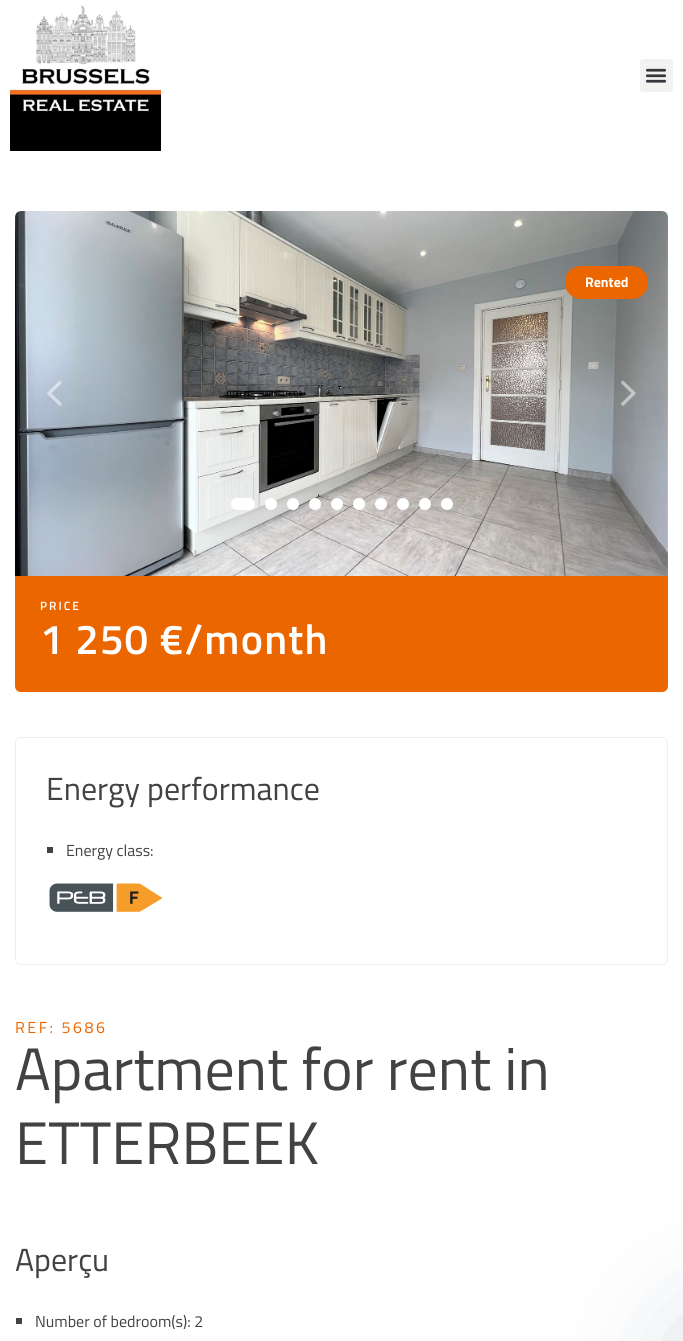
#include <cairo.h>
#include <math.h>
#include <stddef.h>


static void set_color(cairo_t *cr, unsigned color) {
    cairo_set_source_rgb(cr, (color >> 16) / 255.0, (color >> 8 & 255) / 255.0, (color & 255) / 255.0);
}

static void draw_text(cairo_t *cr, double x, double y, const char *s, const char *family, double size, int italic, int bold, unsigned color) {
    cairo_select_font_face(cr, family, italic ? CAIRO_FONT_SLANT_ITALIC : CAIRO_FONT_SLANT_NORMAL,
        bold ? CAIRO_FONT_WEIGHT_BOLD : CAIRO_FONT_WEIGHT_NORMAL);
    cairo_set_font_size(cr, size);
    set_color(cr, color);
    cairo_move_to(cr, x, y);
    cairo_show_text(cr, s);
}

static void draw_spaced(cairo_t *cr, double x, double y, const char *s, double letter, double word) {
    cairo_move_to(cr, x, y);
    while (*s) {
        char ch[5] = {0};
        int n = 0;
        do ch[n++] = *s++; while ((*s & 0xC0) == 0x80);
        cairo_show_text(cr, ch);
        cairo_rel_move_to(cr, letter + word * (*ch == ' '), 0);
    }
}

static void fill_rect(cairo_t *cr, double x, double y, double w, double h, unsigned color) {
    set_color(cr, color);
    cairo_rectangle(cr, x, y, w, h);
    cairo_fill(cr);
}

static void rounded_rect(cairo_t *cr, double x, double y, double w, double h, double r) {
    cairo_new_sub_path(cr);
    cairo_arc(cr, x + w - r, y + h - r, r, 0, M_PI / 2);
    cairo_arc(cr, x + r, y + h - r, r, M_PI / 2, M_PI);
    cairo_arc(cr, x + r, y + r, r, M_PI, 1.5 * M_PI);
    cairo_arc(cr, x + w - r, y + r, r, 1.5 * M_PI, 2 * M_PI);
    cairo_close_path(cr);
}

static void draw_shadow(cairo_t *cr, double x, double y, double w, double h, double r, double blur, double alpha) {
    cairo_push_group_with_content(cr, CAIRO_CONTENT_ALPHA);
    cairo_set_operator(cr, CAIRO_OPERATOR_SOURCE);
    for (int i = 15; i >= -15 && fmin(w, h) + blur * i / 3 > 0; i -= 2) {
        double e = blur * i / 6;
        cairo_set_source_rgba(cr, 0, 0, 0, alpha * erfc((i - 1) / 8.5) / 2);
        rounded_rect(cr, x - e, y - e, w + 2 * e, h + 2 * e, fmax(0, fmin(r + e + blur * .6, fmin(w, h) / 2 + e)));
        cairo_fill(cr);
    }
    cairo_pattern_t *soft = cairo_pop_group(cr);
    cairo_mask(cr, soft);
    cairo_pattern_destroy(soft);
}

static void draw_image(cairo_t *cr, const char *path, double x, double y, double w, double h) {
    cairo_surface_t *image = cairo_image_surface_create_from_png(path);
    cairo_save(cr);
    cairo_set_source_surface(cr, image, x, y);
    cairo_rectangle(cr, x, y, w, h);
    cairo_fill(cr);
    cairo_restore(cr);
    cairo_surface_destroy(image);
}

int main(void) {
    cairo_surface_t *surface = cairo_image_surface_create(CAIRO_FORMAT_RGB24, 683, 1341);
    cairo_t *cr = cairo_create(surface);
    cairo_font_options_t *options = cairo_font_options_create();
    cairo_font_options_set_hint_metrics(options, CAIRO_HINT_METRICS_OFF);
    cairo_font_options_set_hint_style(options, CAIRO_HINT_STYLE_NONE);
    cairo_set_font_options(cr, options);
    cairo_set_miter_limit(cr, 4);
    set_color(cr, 0xFFFFFF);
    cairo_paint(cr);
    draw_image(cr, "assets/img1.png", 10, 5, 151, 146);
    set_color(cr, 0xF2F2F2);
    rounded_rect(cr, 640, 59, 33, 33, 3);
    cairo_fill(cr);
    draw_image(cr, "assets/img2.png", 645, 68, 22, 15);
    draw_image(cr, "assets/img3.png", 15, 211, 653, 365);
    set_color(cr, 0xFFFFFF);
    rounded_rect(cr, 231, 498, 24, 12, 6);
    cairo_fill(cr);
    cairo_arc(cr, 271, 504, 6, 0, 2 * M_PI);
    cairo_fill(cr);
    cairo_arc(cr, 293, 504, 6, 0, 2 * M_PI);
    cairo_fill(cr);
    cairo_arc(cr, 315, 504, 6, 0, 2 * M_PI);
    cairo_fill(cr);
    cairo_arc(cr, 337, 504, 6, 0, 2 * M_PI);
    cairo_fill(cr);
    cairo_arc(cr, 359, 504, 6, 0, 2 * M_PI);
    cairo_fill(cr);
    cairo_arc(cr, 381, 504, 6, 0, 2 * M_PI);
    cairo_fill(cr);
    cairo_arc(cr, 403, 504, 6, 0, 2 * M_PI);
    cairo_fill(cr);
    cairo_arc(cr, 425, 504, 6, 0, 2 * M_PI);
    cairo_fill(cr);
    cairo_arc(cr, 447, 504, 6, 0, 2 * M_PI);
    cairo_fill(cr);
    set_color(cr, 0xEC6600);
    rounded_rect(cr, 565, 266, 83, 33, 16);
    cairo_fill(cr);
    draw_text(cr, 585, 287, "Rented", "Titillium Web", 14, 0, 1, 0xFFFFFF);
    draw_image(cr, "assets/img4.png", 47, 380, 15, 26);
    draw_image(cr, "assets/img5.png", 621, 380, 15, 26);
    set_color(cr, 0xEC6600);
    cairo_new_path(cr);
    cairo_move_to(cr, 15, 576);
    cairo_line_to(cr, 668, 576);
    cairo_line_to(cr, 668, 686);
    cairo_curve_to(cr, 668, 689.5, 665.5, 692, 662, 692);
    cairo_line_to(cr, 21, 692);
    cairo_curve_to(cr, 17.5, 692, 15, 689.5, 15, 686);
    cairo_close_path(cr);
    cairo_fill(cr);
    cairo_select_font_face(cr, "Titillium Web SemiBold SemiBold", CAIRO_FONT_SLANT_NORMAL, CAIRO_FONT_WEIGHT_NORMAL);
    cairo_set_font_size(cr, 12);
    set_color(cr, 0xFFFFFF);
    draw_spaced(cr, 40, 610, "PRICE", 2, 0);
    cairo_set_font_size(cr, 42);
    draw_spaced(cr, 40, 654, "1 250 €/month", 1.2, 0);
    rounded_rect(cr, 15.5, 737.5, 652, 227, 5.5);
    set_color(cr, 0xEEEEF0);
    cairo_set_line_width(cr, 1);
    cairo_stroke(cr);
    draw_text(cr, 46, 800, "Energy performance", "Titillium Web", 32, 0, 0, 0x424242);
    fill_rect(cr, 47, 847, 6, 6, 0x424242);
    draw_text(cr, 66, 856, "Energy class:", "Titillium Web", 16, 0, 0, 0x424242);
    draw_image(cr, "assets/img6.png", 49, 883, 114, 29);
    set_color(cr, 0xEC6600);
    draw_spaced(cr, 15, 1033, "REF: 5686", 2.5, 0);
    draw_text(cr, 15, 1090, "Apartment for rent in", "Titillium Web", 60, 0, 0, 0x424242);
    draw_text(cr, 15, 1164, "ETTERBEEK", "Titillium Web", 60, 0, 0, 0x424242);
    draw_text(cr, 15, 1271, "Aperçu", "Titillium Web", 32, 0, 0, 0x424242);
    fill_rect(cr, 16, 1318, 6, 6, 0x424242);
    draw_text(cr, 35, 1327, "Number of bedroom(s): 2", "Titillium Web", 16, 0, 0, 0x424242);
    set_color(cr, 0x2C3F58);
    draw_shadow(cr, 683, 1327, 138, 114, 12, 60, 0.2);
    cairo_surface_write_to_png(surface, "output.png");
    cairo_font_options_destroy(options);
    cairo_destroy(cr);
    cairo_surface_destroy(surface);
    return 0;
}
